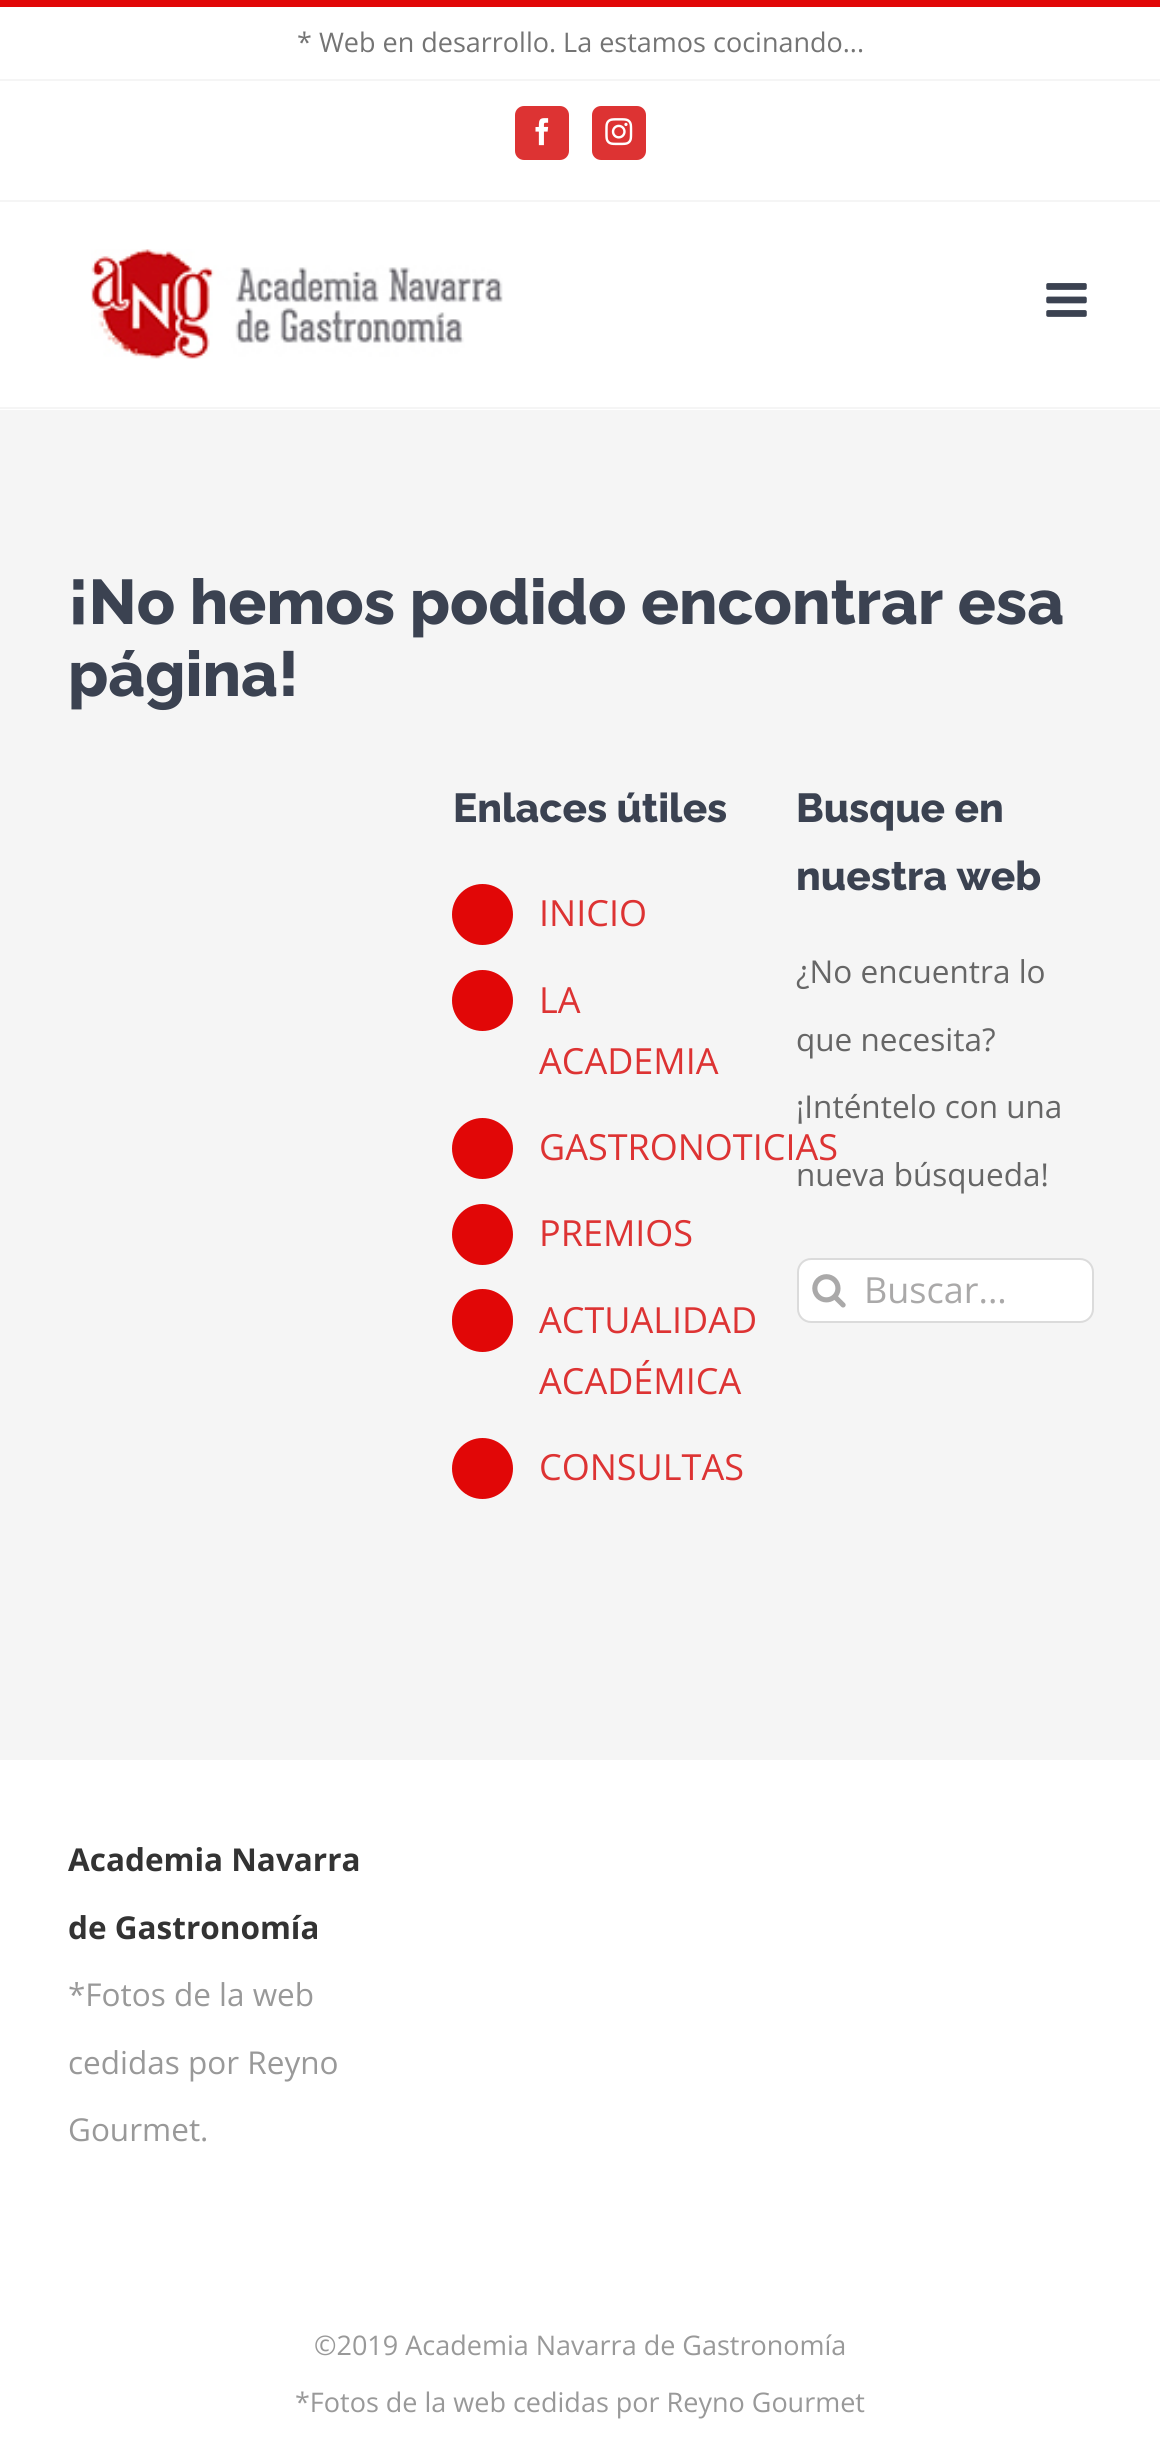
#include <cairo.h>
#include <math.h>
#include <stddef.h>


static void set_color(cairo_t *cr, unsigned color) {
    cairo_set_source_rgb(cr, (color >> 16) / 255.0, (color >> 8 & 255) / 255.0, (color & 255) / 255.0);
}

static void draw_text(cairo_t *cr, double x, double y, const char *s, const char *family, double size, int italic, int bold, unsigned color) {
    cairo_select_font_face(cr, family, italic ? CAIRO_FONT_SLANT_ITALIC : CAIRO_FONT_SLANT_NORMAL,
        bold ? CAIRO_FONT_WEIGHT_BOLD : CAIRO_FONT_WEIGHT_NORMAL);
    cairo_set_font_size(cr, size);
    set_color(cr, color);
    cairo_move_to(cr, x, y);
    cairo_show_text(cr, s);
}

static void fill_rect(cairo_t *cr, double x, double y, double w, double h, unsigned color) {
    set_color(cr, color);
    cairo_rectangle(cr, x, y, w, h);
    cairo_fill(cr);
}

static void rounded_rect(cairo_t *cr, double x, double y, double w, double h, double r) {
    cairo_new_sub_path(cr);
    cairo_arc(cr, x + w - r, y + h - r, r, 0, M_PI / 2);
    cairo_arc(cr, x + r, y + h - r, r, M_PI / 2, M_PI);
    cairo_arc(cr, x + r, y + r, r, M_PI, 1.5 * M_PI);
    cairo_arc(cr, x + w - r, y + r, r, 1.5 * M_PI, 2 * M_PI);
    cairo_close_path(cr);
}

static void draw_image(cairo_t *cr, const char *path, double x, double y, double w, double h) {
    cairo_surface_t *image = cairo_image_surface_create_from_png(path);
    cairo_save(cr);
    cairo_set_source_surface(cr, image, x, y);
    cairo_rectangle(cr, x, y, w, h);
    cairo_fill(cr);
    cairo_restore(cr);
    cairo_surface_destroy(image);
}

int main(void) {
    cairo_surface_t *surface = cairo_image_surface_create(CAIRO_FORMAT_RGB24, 1160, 2443);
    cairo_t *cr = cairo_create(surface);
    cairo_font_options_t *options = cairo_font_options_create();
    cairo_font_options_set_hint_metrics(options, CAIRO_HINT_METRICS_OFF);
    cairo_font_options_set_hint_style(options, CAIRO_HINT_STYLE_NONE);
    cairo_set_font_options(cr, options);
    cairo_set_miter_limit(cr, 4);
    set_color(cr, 0xF5F5F5);
    cairo_paint(cr);
    fill_rect(cr, 0, 7, 1160, 403, 0xFFFFFF);
    fill_rect(cr, 0, 0, 1160, 7, 0xE10707);
    fill_rect(cr, 0, 200, 1160, 2, 0xF5F5F5);
    fill_rect(cr, 0, 79, 1160, 2, 0xF5F5F5);
    draw_text(cr, 297, 52, "* Web en desarrollo. La estamos cocinando...", "Open Sans", 27, 0, 0, 0x747474);
    set_color(cr, 0xDD3333);
    rounded_rect(cr, 516, 107, 52, 52, 8);
    cairo_fill_preserve(cr);
    cairo_stroke(cr);
    draw_image(cr, "assets/img1.png", 535, 118, 14, 28);
    rounded_rect(cr, 593, 107, 52, 52, 8);
    cairo_fill_preserve(cr);
    cairo_stroke(cr);
    draw_image(cr, "assets/img2.png", 605, 118, 28, 28);
    fill_rect(cr, 0, 407, 1160, 2, 0xF5F5F5);
    draw_image(cr, "assets/img3.png", 91, 249, 412, 110);
    draw_image(cr, "assets/img4.png", 1046, 283, 41, 34);
    draw_text(cr, 68, 624, "¡No hemos podido encontrar esa", "Raleway Thin", 63, 0, 0, 0x3B4251);
    draw_text(cr, 68, 696, "página!", "Raleway Thin", 63, 0, 0, 0x3B4251);
    draw_text(cr, 453, 822, "Enlaces útiles", "Raleway Thin", 40.5, 0, 0, 0x3B4251);
    set_color(cr, 0xE10707);
    cairo_new_path(cr);
    cairo_arc(cr, 482.5, 914.5, 30.5, 0, 2 * M_PI);
    cairo_fill(cr);
    draw_text(cr, 539, 926, "INICIO", "Open Sans", 36, 0, 0, 0xDD3333);
    set_color(cr, 0xE10707);
    cairo_new_path(cr);
    cairo_arc(cr, 482.5, 1000.5, 30.5, 0, 2 * M_PI);
    cairo_fill(cr);
    draw_text(cr, 539, 1013, "LA", "Open Sans", 36, 0, 0, 0xDD3333);
    draw_text(cr, 539, 1074, "ACADEMIA", "Open Sans", 36, 0, 0, 0xDD3333);
    set_color(cr, 0xE10707);
    cairo_new_path(cr);
    cairo_arc(cr, 482.5, 1148.5, 30.5, 0, 2 * M_PI);
    cairo_fill(cr);
    draw_text(cr, 539, 1160, "GASTRONOTICIAS", "Open Sans", 36, 0, 0, 0xDD3333);
    set_color(cr, 0xE10707);
    cairo_new_path(cr);
    cairo_arc(cr, 482.5, 1234.5, 30.5, 0, 2 * M_PI);
    cairo_fill(cr);
    draw_text(cr, 539, 1246, "PREMIOS", "Open Sans", 36, 0, 0, 0xDD3333);
    set_color(cr, 0xE10707);
    rounded_rect(cr, 452, 1289, 61, 63, 30.5);
    cairo_fill(cr);
    draw_text(cr, 539, 1333, "ACTUALIDAD", "Open Sans", 36, 0, 0, 0xDD3333);
    draw_text(cr, 539, 1394, "ACADÉMICA", "Open Sans", 36, 0, 0, 0xDD3333);
    set_color(cr, 0xE10707);
    cairo_new_path(cr);
    cairo_arc(cr, 482.5, 1468.5, 30.5, 0, 2 * M_PI);
    cairo_fill(cr);
    draw_text(cr, 539, 1480, "CONSULTAS", "Open Sans", 36, 0, 0, 0xDD3333);
    draw_text(cr, 796, 822, "Busque en", "Raleway Thin", 40.5, 0, 0, 0x3B4251);
    draw_text(cr, 796, 890, "nuestra web", "Raleway Thin", 40.5, 0, 0, 0x3B4251);
    draw_text(cr, 796, 983, "¿No encuentra lo", "Open Sans", 31.5, 0, 0, 0x666666);
    draw_text(cr, 796, 1051, "que necesita?", "Open Sans", 31.5, 0, 0, 0x666666);
    draw_text(cr, 796, 1118, "¡Inténtelo con una", "Open Sans", 31.5, 0, 0, 0x666666);
    draw_text(cr, 796, 1186, "nueva búsqueda!", "Open Sans", 31.5, 0, 0, 0x666666);
    set_color(cr, 0xFFFFFF);
    rounded_rect(cr, 798, 1259, 295, 63, 13);
    cairo_fill_preserve(cr);
    set_color(cr, 0xDBDBDB);
    cairo_stroke(cr);
    draw_image(cr, "assets/img5.png", 812, 1274, 34, 34);
    draw_text(cr, 864, 1303, "Buscar...", "Open Sans", 36, 0, 0, 0xAAA9A9);
    fill_rect(cr, 0, 1760, 1160, 683, 0xFFFFFF);
    draw_text(cr, 68, 1871, "Academia Navarra", "Open Sans", 31.5, 0, 1, 0x333333);
    draw_text(cr, 68, 1939, "de Gastronomía", "Open Sans", 31.5, 0, 1, 0x333333);
    draw_text(cr, 68, 2006, "*Fotos de la web", "Open Sans", 31.5, 0, 0, 0x999999);
    draw_text(cr, 68, 2074, "cedidas por Reyno", "Open Sans", 31.5, 0, 0, 0x999999);
    draw_text(cr, 68, 2141, "Gourmet.", "Open Sans", 31.5, 0, 0, 0x999999);
    draw_text(cr, 314, 2355, "©2019 Academia Navarra de Gastronomía", "Open Sans", 27, 0, 0, 0x999999);
    draw_text(cr, 295, 2412, "*Fotos de la web cedidas por Reyno Gourmet", "Open Sans", 27, 0, 0, 0x999999);
    cairo_surface_write_to_png(surface, "output.png");
    cairo_font_options_destroy(options);
    cairo_destroy(cr);
    cairo_surface_destroy(surface);
    return 0;
}
